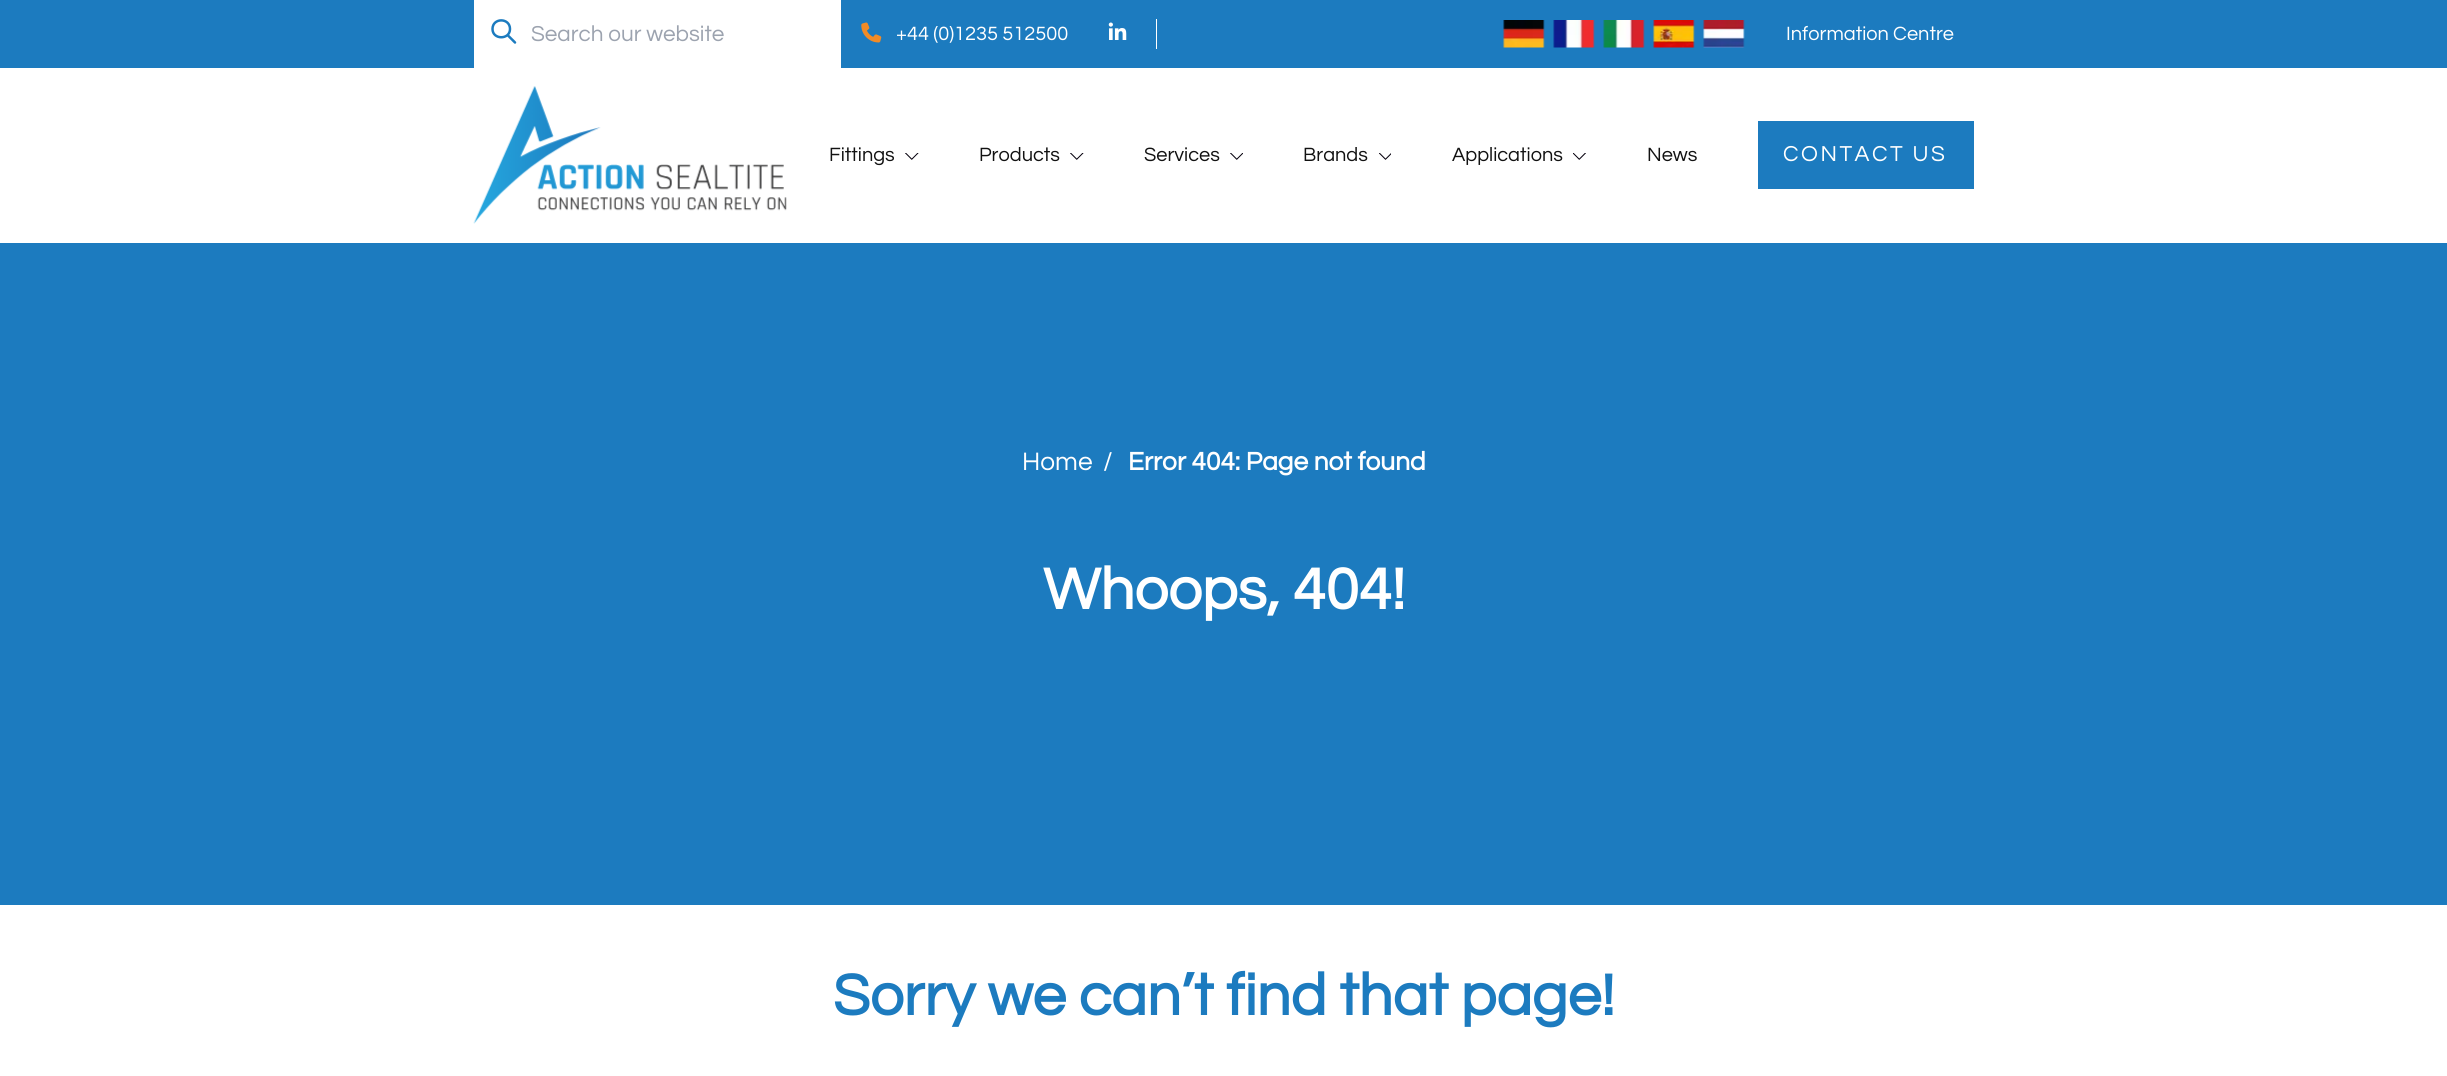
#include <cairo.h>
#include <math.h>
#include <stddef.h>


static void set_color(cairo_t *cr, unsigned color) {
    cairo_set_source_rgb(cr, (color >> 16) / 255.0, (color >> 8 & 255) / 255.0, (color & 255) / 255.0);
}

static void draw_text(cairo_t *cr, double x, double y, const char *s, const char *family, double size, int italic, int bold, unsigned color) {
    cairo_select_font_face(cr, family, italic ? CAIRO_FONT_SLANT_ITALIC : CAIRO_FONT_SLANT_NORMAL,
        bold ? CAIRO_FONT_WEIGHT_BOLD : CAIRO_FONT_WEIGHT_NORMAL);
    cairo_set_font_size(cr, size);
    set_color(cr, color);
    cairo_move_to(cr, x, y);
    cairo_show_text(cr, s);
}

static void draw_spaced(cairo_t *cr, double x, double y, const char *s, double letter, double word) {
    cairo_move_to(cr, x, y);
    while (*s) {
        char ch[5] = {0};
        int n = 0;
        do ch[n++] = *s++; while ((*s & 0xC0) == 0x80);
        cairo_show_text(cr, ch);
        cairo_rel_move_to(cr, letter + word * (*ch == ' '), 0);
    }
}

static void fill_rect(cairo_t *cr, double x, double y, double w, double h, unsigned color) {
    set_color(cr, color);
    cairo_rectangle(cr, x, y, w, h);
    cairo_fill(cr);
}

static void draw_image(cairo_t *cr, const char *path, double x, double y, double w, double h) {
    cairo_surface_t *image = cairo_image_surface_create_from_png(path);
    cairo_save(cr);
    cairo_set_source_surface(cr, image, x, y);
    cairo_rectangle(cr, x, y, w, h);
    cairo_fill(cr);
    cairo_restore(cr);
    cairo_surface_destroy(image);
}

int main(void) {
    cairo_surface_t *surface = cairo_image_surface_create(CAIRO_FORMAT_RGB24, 2447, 1076);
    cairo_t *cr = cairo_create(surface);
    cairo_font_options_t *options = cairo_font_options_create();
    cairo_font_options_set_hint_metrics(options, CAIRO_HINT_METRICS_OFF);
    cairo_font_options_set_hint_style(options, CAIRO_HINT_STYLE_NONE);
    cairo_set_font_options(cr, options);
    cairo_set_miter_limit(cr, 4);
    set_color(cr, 0xFFFFFF);
    cairo_paint(cr);
    fill_rect(cr, 0, 0, 2447, 68, 0x1C7BBF);
    fill_rect(cr, 474, 0, 367, 68, 0xFFFFFF);
    cairo_new_path(cr);
    cairo_move_to(cr, 515, 42.5);
    cairo_line_to(cr, 507.5, 35);
    cairo_move_to(cr, 510, 29);
    cairo_curve_to(cr, 510, 40, 492.5, 40, 492.5, 29);
    cairo_curve_to(cr, 492.5, 17.5, 510, 17.5, 510, 29);
    cairo_close_path(cr);
    set_color(cr, 0x1C7BBF);
    cairo_set_line_width(cr, 2.5);
    cairo_set_line_cap(cr, CAIRO_LINE_CAP_ROUND);
    cairo_set_line_join(cr, CAIRO_LINE_JOIN_ROUND);
    cairo_stroke(cr);
    draw_text(cr, 531, 41, "Search our website", "Questrial", 22.5, 0, 0, 0x9CA3AF);
    draw_image(cr, "assets/img1.png", 861, 22, 21, 21);
    draw_text(cr, 896, 40, "+44 (0)1235 512500", "Questrial", 20, 0, 0, 0xFFFFFF);
    fill_rect(cr, 1156, 19, 1, 30, 0xFFFFFF);
    draw_image(cr, "assets/img2.png", 1108, 22, 19, 18);
    draw_image(cr, "assets/img3.png", 1503, 20, 42, 28);
    draw_image(cr, "assets/img4.png", 1553, 20, 42, 28);
    draw_image(cr, "assets/img5.png", 1603, 20, 42, 28);
    draw_image(cr, "assets/img6.png", 1653, 20, 42, 28);
    draw_image(cr, "assets/img7.png", 1703, 20, 42, 28);
    draw_text(cr, 1786, 40, "Information Centre", "Questrial", 20, 0, 0, 0xFFFFFF);
    draw_image(cr, "assets/img8.png", 473, 86, 314, 138);
    draw_text(cr, 829, 161, "Fittings", "Questrial", 20, 0, 0, 0x121212);
    draw_image(cr, "assets/img9.png", 905, 153, 14, 7);
    draw_text(cr, 979, 161, "Products", "Questrial", 20, 0, 0, 0x121212);
    draw_image(cr, "assets/img9.png", 1070, 153, 14, 7);
    draw_text(cr, 1144, 161, "Services", "Questrial", 20, 0, 0, 0x121212);
    draw_image(cr, "assets/img10.png", 1230, 153, 13, 7);
    draw_text(cr, 1303, 161, "Brands", "Questrial", 20, 0, 0, 0x121212);
    draw_image(cr, "assets/img11.png", 1379, 153, 12, 7);
    draw_text(cr, 1452, 161, "Applications", "Questrial", 20, 0, 0, 0x121212);
    draw_image(cr, "assets/img12.png", 1573, 153, 13, 7);
    draw_text(cr, 1647, 161, "News", "Questrial", 20, 0, 0, 0x121212);
    fill_rect(cr, 1758, 121, 216, 68, 0x1C7BBF);
    cairo_set_font_size(cr, 22.5);
    set_color(cr, 0xFFFFFF);
    draw_spaced(cr, 1783, 161, "CONTACT US", 2.5, 0);
    fill_rect(cr, 0, 243, 2447, 662, 0x1C7BBF);
    draw_text(cr, 1022, 470, "Home", "Questrial", 26.25, 0, 0, 0xFFFFFF);
    draw_spaced(cr, 1103, 470, "/", 5, 0);
    draw_text(cr, 1128, 470, "Error 404: Page not found", "Questrial", 26.25, 0, 1, 0xFFFFFF);
    draw_text(cr, 1043, 609, "Whoops, 404!", "Questrial", 60, 0, 1, 0xFFFFFF);
    draw_text(cr, 833, 1015, "Sorry we can’t find that page!", "Questrial", 60, 0, 1, 0x1C7BBF);
    cairo_surface_write_to_png(surface, "output.png");
    cairo_font_options_destroy(options);
    cairo_destroy(cr);
    cairo_surface_destroy(surface);
    return 0;
}
